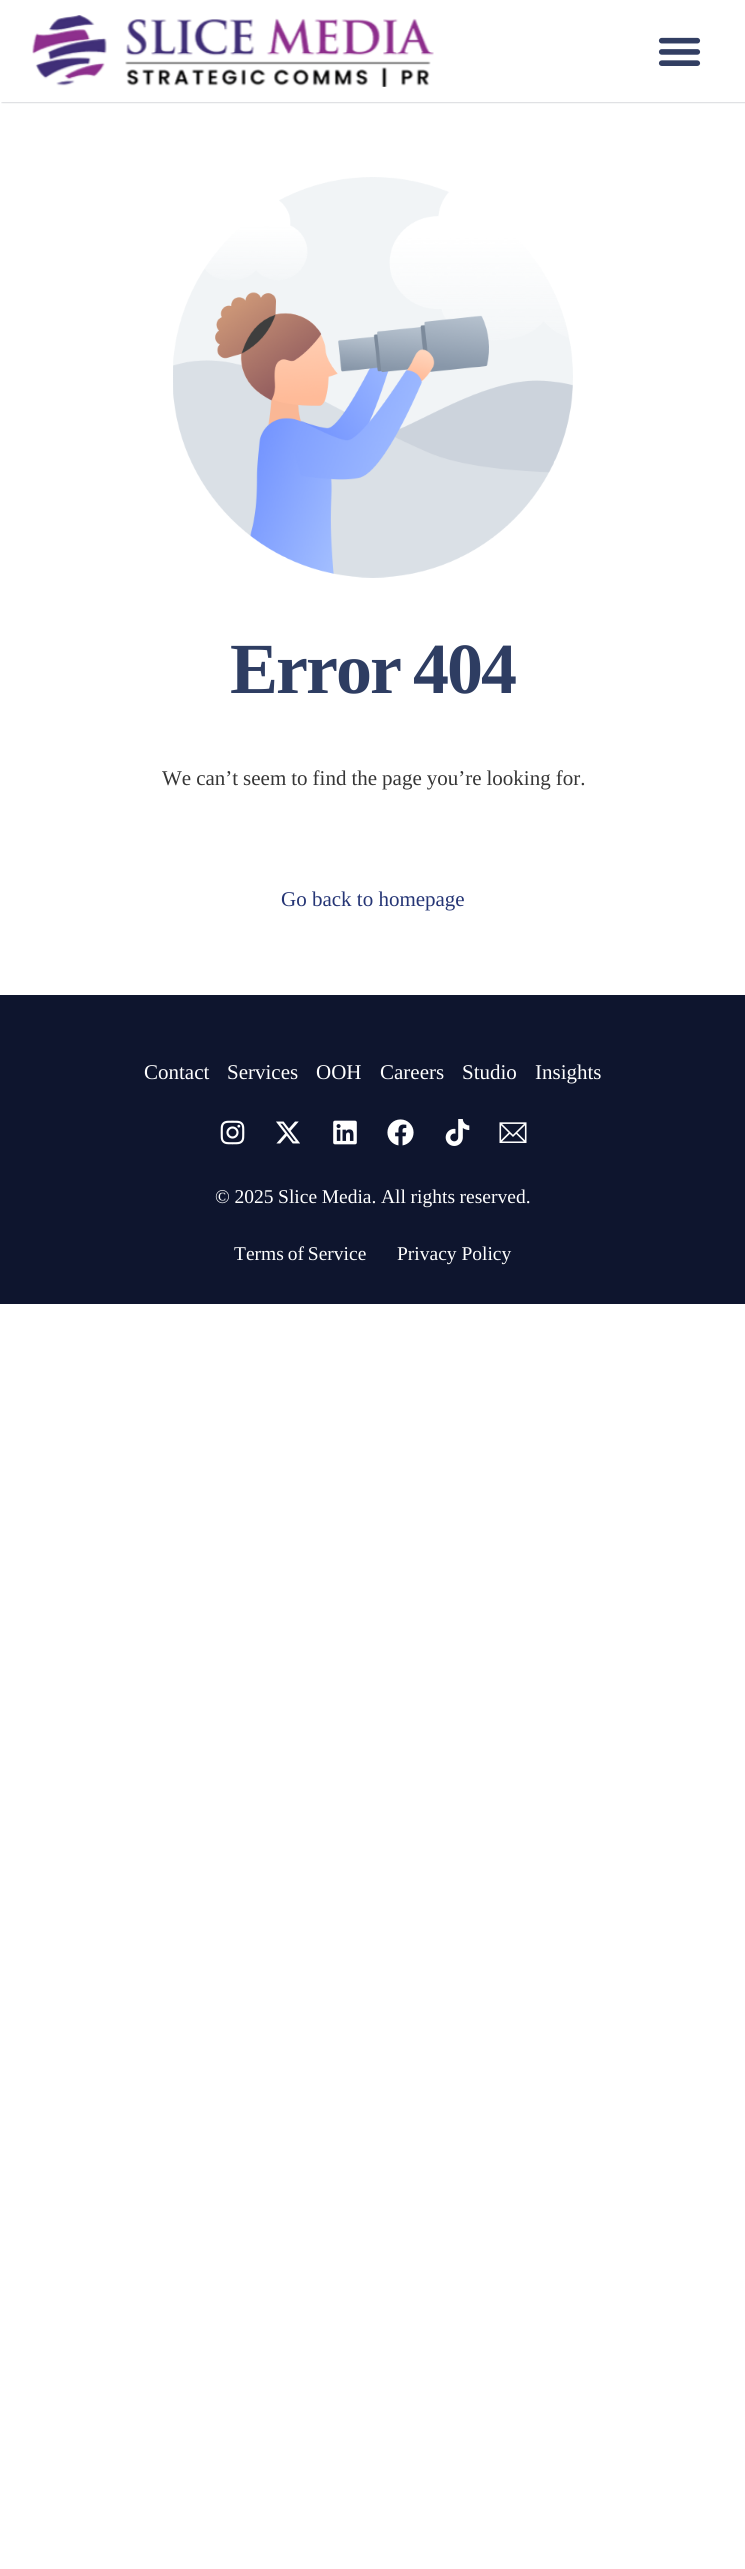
#include <cairo.h>
#include <math.h>
#include <stddef.h>


static void set_color(cairo_t *cr, unsigned color) {
    cairo_set_source_rgb(cr, (color >> 16) / 255.0, (color >> 8 & 255) / 255.0, (color & 255) / 255.0);
}

static void draw_text(cairo_t *cr, double x, double y, const char *s, const char *family, double size, int italic, int bold, unsigned color) {
    cairo_select_font_face(cr, family, italic ? CAIRO_FONT_SLANT_ITALIC : CAIRO_FONT_SLANT_NORMAL,
        bold ? CAIRO_FONT_WEIGHT_BOLD : CAIRO_FONT_WEIGHT_NORMAL);
    cairo_set_font_size(cr, size);
    set_color(cr, color);
    cairo_move_to(cr, x, y);
    cairo_show_text(cr, s);
}

static void draw_spaced(cairo_t *cr, double x, double y, const char *s, double letter, double word) {
    cairo_move_to(cr, x, y);
    while (*s) {
        char ch[5] = {0};
        int n = 0;
        do ch[n++] = *s++; while ((*s & 0xC0) == 0x80);
        cairo_show_text(cr, ch);
        cairo_rel_move_to(cr, letter + word * (*ch == ' '), 0);
    }
}

static void fill_rect(cairo_t *cr, double x, double y, double w, double h, unsigned color) {
    set_color(cr, color);
    cairo_rectangle(cr, x, y, w, h);
    cairo_fill(cr);
}

static void rounded_rect(cairo_t *cr, double x, double y, double w, double h, double r) {
    cairo_new_sub_path(cr);
    cairo_arc(cr, x + w - r, y + h - r, r, 0, M_PI / 2);
    cairo_arc(cr, x + r, y + h - r, r, M_PI / 2, M_PI);
    cairo_arc(cr, x + r, y + r, r, M_PI, 1.5 * M_PI);
    cairo_arc(cr, x + w - r, y + r, r, 1.5 * M_PI, 2 * M_PI);
    cairo_close_path(cr);
}

static void draw_shadow(cairo_t *cr, double x, double y, double w, double h, double r, double blur, double alpha) {
    cairo_push_group_with_content(cr, CAIRO_CONTENT_ALPHA);
    cairo_set_operator(cr, CAIRO_OPERATOR_SOURCE);
    for (int i = 15; i >= -15 && fmin(w, h) + blur * i / 3 > 0; i -= 2) {
        double e = blur * i / 6;
        cairo_set_source_rgba(cr, 0, 0, 0, alpha * erfc((i - 1) / 8.5) / 2);
        rounded_rect(cr, x - e, y - e, w + 2 * e, h + 2 * e, fmax(0, fmin(r + e + blur * .6, fmin(w, h) / 2 + e)));
        cairo_fill(cr);
    }
    cairo_pattern_t *soft = cairo_pop_group(cr);
    cairo_mask(cr, soft);
    cairo_pattern_destroy(soft);
}

static void draw_image(cairo_t *cr, const char *path, double x, double y, double w, double h) {
    cairo_surface_t *image = cairo_image_surface_create_from_png(path);
    cairo_save(cr);
    cairo_set_source_surface(cr, image, x, y);
    cairo_rectangle(cr, x, y, w, h);
    cairo_fill(cr);
    cairo_restore(cr);
    cairo_surface_destroy(image);
}

int main(void) {
    cairo_surface_t *surface = cairo_image_surface_create(CAIRO_FORMAT_RGB24, 745, 2569);
    cairo_t *cr = cairo_create(surface);
    cairo_font_options_t *options = cairo_font_options_create();
    cairo_font_options_set_hint_metrics(options, CAIRO_HINT_METRICS_OFF);
    cairo_font_options_set_hint_style(options, CAIRO_HINT_STYLE_NONE);
    cairo_set_font_options(cr, options);
    cairo_set_miter_limit(cr, 4);
    set_color(cr, 0xFFFFFF);
    cairo_paint(cr);
    cairo_save(cr);
    cairo_rectangle(cr, 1, 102, 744, 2);
    cairo_clip(cr);
    set_color(cr, 0x878B95);
    draw_shadow(cr, 2, 0, 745, 102, 0, 1, 0.74);
    cairo_restore(cr);
    draw_image(cr, "assets/img1.png", 32, 15, 402, 72);
    draw_image(cr, "assets/img2.png", 658, 37, 43, 29);
    draw_image(cr, "assets/img3.png", 173, 177, 400, 401);
    cairo_select_font_face(cr, "Liberation Serif", CAIRO_FONT_SLANT_NORMAL, CAIRO_FONT_WEIGHT_BOLD);
    cairo_set_font_size(cr, 72);
    set_color(cr, 0x2E3D62);
    draw_spaced(cr, 230, 693, "Error 404", -2, -3);
    cairo_select_font_face(cr, "Liberation Serif", CAIRO_FONT_SLANT_NORMAL, CAIRO_FONT_WEIGHT_NORMAL);
    cairo_set_font_size(cr, 21);
    set_color(cr, 0x363636);
    draw_spaced(cr, 162, 785, "We can’t seem to find the page you’re looking for.", 0, -0.25);
    draw_text(cr, 281, 906, "Go back to homepage", "Liberation Serif", 21, 0, 0, 0x253575);
    fill_rect(cr, 0, 995, 745, 309, 0x0E152E);
    draw_text(cr, 144, 1079, "Contact", "Liberation Serif", 21, 0, 0, 0xFFFFFF);
    draw_text(cr, 227, 1079, "Services", "Liberation Serif", 21, 0, 0, 0xFFFFFF);
    draw_text(cr, 316, 1079, "OOH", "Liberation Serif", 21, 0, 0, 0xFFFFFF);
    draw_text(cr, 380, 1079, "Careers", "Liberation Serif", 21, 0, 0, 0xFFFFFF);
    draw_text(cr, 462, 1079, "Studio", "Liberation Serif", 21, 0, 0, 0xFFFFFF);
    draw_text(cr, 535, 1079, "Insights", "Liberation Serif", 21, 0, 0, 0xFFFFFF);
    draw_image(cr, "assets/img4.png", 220, 1120, 25, 25);
    draw_image(cr, "assets/img5.png", 276, 1121, 24, 23);
    draw_image(cr, "assets/img6.png", 333, 1120, 24, 25);
    draw_image(cr, "assets/img7.png", 387, 1119, 27, 27);
    draw_image(cr, "assets/img8.png", 445, 1119, 25, 27);
    draw_image(cr, "assets/img9.png", 499, 1122, 28, 21);
    cairo_set_font_size(cr, 19.5);
    draw_spaced(cr, 215, 1203, "© 2025 Slice Media. All rights reserved.", 0, -0.25);
    draw_spaced(cr, 234, 1260, "Terms of Service", 0, -1);
    draw_text(cr, 397, 1260, "Privacy Policy", "Liberation Serif", 19.5, 0, 0, 0xFFFFFF);
    cairo_surface_write_to_png(surface, "output.png");
    cairo_font_options_destroy(options);
    cairo_destroy(cr);
    cairo_surface_destroy(surface);
    return 0;
}
